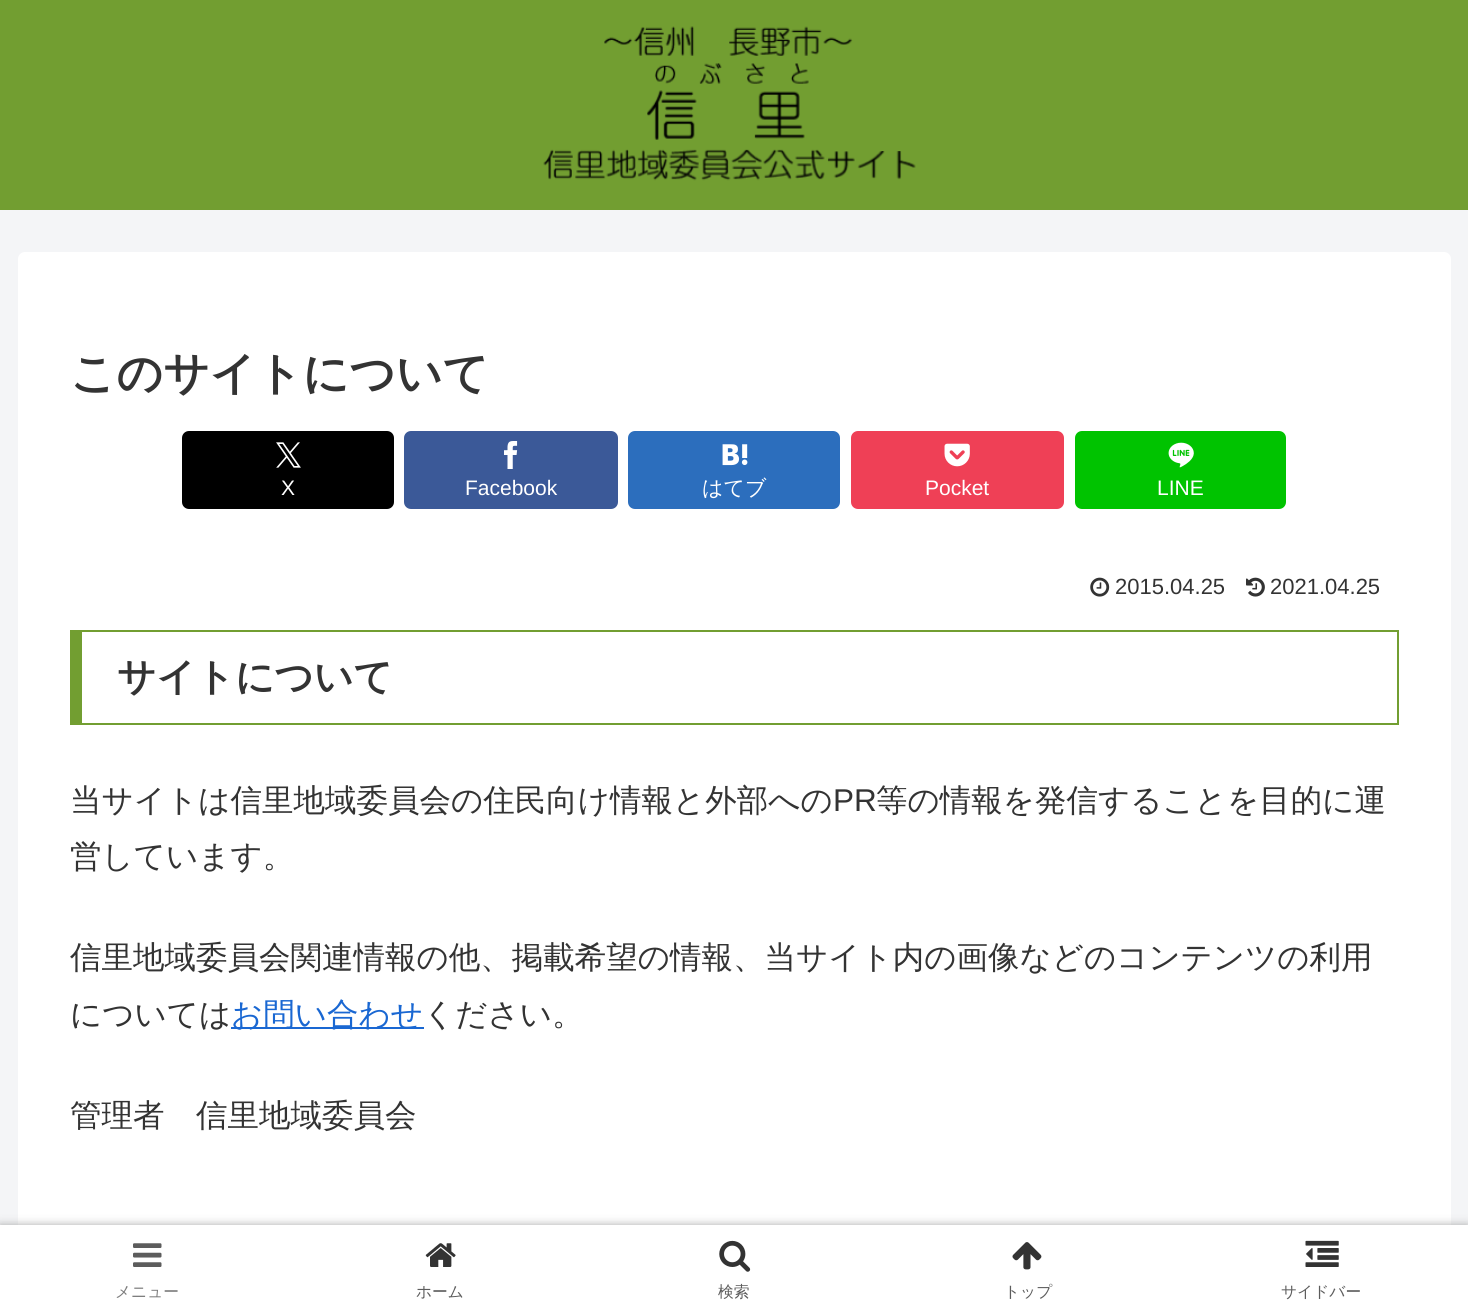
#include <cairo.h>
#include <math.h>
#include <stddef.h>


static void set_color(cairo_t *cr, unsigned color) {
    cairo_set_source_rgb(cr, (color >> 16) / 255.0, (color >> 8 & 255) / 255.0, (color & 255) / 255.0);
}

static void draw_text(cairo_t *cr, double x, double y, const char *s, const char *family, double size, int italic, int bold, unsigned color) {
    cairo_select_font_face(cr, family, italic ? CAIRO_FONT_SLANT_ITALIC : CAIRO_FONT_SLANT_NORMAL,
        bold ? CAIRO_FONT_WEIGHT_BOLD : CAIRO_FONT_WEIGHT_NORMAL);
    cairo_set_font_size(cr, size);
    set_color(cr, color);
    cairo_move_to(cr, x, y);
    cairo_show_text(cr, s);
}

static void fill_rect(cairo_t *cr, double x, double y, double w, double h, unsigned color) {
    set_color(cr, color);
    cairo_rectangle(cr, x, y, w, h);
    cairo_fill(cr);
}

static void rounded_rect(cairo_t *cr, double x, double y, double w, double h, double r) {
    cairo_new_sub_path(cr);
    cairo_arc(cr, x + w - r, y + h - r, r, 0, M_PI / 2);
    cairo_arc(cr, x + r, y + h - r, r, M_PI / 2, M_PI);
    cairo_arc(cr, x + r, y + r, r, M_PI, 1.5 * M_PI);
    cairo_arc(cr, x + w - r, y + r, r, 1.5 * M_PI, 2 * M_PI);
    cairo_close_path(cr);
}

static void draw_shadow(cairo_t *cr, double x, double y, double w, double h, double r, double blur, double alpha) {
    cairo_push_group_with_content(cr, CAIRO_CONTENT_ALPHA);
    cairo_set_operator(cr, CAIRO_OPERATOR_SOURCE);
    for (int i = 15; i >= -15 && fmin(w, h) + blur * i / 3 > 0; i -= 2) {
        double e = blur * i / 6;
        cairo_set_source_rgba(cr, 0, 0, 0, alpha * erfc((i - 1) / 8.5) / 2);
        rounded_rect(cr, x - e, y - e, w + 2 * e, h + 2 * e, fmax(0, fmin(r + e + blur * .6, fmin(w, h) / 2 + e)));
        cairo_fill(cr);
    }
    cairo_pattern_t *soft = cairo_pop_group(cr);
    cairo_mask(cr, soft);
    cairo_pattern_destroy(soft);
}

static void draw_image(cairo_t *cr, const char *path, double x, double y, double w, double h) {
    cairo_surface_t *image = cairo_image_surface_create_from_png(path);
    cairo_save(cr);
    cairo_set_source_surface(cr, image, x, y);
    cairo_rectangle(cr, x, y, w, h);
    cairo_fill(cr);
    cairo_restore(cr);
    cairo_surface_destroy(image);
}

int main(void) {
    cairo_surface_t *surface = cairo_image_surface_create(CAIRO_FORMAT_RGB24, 1468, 1312);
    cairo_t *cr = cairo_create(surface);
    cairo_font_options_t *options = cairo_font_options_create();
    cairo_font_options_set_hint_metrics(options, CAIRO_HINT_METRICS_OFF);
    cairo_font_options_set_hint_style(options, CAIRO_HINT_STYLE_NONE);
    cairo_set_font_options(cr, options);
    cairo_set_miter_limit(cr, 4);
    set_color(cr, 0xF4F5F7);
    cairo_paint(cr);
    fill_rect(cr, 0, 0, 1468, 210, 0x729E31);
    draw_image(cr, "assets/img1.png", 543, 26, 373, 155);
    set_color(cr, 0xFFFFFF);
    rounded_rect(cr, 18, 252, 1433, 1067, 7);
    cairo_fill(cr);
    draw_text(cr, 70, 389, "このサイトについて", "WenQuanYi Zen Hei", 45.5, 0, 1, 0x333333);
    set_color(cr, 0x000000);
    rounded_rect(cr, 182, 431, 212, 78, 7);
    cairo_fill(cr);
    draw_image(cr, "assets/img2.png", 276, 442, 25, 26);
    draw_text(cr, 281, 495, "X", "Liberation Sans", 21, 0, 0, 0xFFFFFF);
    set_color(cr, 0x3B5998);
    rounded_rect(cr, 404, 431, 214, 78, 7);
    cairo_fill(cr);
    draw_image(cr, "assets/img3.png", 504, 441, 14, 28);
    draw_text(cr, 465, 495, "Facebook", "Liberation Sans", 21, 0, 0, 0xFFFFFF);
    set_color(cr, 0x2C6EBD);
    rounded_rect(cr, 628, 431, 212, 78, 7);
    cairo_fill(cr);
    draw_image(cr, "assets/img4.png", 722, 444, 26, 22);
    draw_text(cr, 702, 495, "はてブ", "WenQuanYi Zen Hei Medium", 21, 0, 0, 0xFFFFFF);
    set_color(cr, 0xEF4056);
    rounded_rect(cr, 851, 431, 213, 78, 7);
    cairo_fill(cr);
    draw_image(cr, "assets/img5.png", 944, 443, 26, 24);
    draw_text(cr, 925, 495, "Pocket", "Liberation Sans", 21, 0, 0, 0xFFFFFF);
    set_color(cr, 0x00C300);
    rounded_rect(cr, 1075, 431, 211, 78, 7);
    cairo_fill(cr);
    draw_image(cr, "assets/img6.png", 1168, 442, 26, 26);
    draw_text(cr, 1157, 495, "LINE", "Liberation Sans", 21, 0, 0, 0xFFFFFF);
    draw_image(cr, "assets/img7.png", 1090, 577, 20, 20);
    draw_text(cr, 1115, 594, "2015.04.25", "Liberation Sans", 22, 0, 0, 0x333333);
    draw_image(cr, "assets/img8.png", 1246, 577, 19, 20);
    draw_text(cr, 1270, 594, "2021.04.25", "Liberation Sans", 22, 0, 0, 0x333333);
    fill_rect(cr, 82, 630, 1316, 2, 0x729E31);
    fill_rect(cr, 1397, 630, 2, 95, 0x729E31);
    fill_rect(cr, 82, 723, 1316, 2, 0x729E31);
    fill_rect(cr, 70, 630, 12, 95, 0x729E31);
    draw_text(cr, 117, 690, "サイトについて", "WenQuanYi Zen Hei", 38.5, 0, 1, 0x333333);
    draw_text(cr, 70, 811, "当サイトは信里地域委員会の住民向け情報と外部への", "WenQuanYi Zen Hei Medium", 31.5, 0, 0, 0x333333);
    draw_text(cr, 833, 811, "PR", "Liberation Sans", 31.5, 0, 0, 0x333333);
    draw_text(cr, 876, 811, "等の情報を発信することを目的に運", "WenQuanYi Zen Hei Medium", 31.5, 0, 0, 0x333333);
    draw_text(cr, 70, 867, "営しています。", "WenQuanYi Zen Hei Medium", 31.5, 0, 0, 0x333333);
    draw_text(cr, 70, 968, "信里地域委員会関連情報の他、掲載希望の情報、当サイト内の画像などのコンテンツの利用", "WenQuanYi Zen Hei Medium", 31.5, 0, 0, 0x333333);
    draw_text(cr, 70, 1025, "については", "WenQuanYi Zen Hei Medium", 31.5, 0, 0, 0x333333);
    fill_rect(cr, 231, 1027, 193, 2, 0x1967D2);
    draw_text(cr, 231, 1025, "お問い合わせ", "WenQuanYi Zen Hei Medium", 31.5, 0, 0, 0x1967D2);
    draw_text(cr, 423, 1025, "ください。", "WenQuanYi Zen Hei Medium", 31.5, 0, 0, 0x333333);
    draw_text(cr, 70, 1126, "管理者　信里地域委員会", "WenQuanYi Zen Hei Medium", 31.5, 0, 0, 0x333333);
    set_color(cr, 0xA9A9A9);
    draw_shadow(cr, 0, 1225, 1468, 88, 0, 4.5, 1);
    fill_rect(cr, 0, 1225, 1468, 87, 0xFFFFFF);
    draw_image(cr, "assets/img9.png", 133, 1243, 29, 24);
    draw_text(cr, 115, 1297, "メニュー", "WenQuanYi Zen Hei Medium", 15.75, 0, 0, 0x7C7C7C);
    draw_image(cr, "assets/img10.png", 425, 1243, 31, 24);
    draw_text(cr, 416, 1297, "ホーム", "WenQuanYi Zen Hei Medium", 15.75, 0, 0, 0x5C5C5C);
    draw_image(cr, "assets/img11.png", 719, 1240, 32, 32);
    draw_text(cr, 718, 1297, "検索", "WenQuanYi Zen Hei Medium", 15.75, 0, 0, 0x5C5C5C);
    draw_image(cr, "assets/img12.png", 1012, 1242, 30, 28);
    draw_text(cr, 1004, 1297, "トップ", "WenQuanYi Zen Hei Medium", 15.75, 0, 0, 0x5C5C5C);
    draw_image(cr, "assets/img13.png", 1305, 1240, 34, 27);
    draw_text(cr, 1281, 1297, "サイドバー", "WenQuanYi Zen Hei Medium", 15.75, 0, 0, 0x5C5C5C);
    cairo_surface_write_to_png(surface, "output.png");
    cairo_font_options_destroy(options);
    cairo_destroy(cr);
    cairo_surface_destroy(surface);
    return 0;
}
